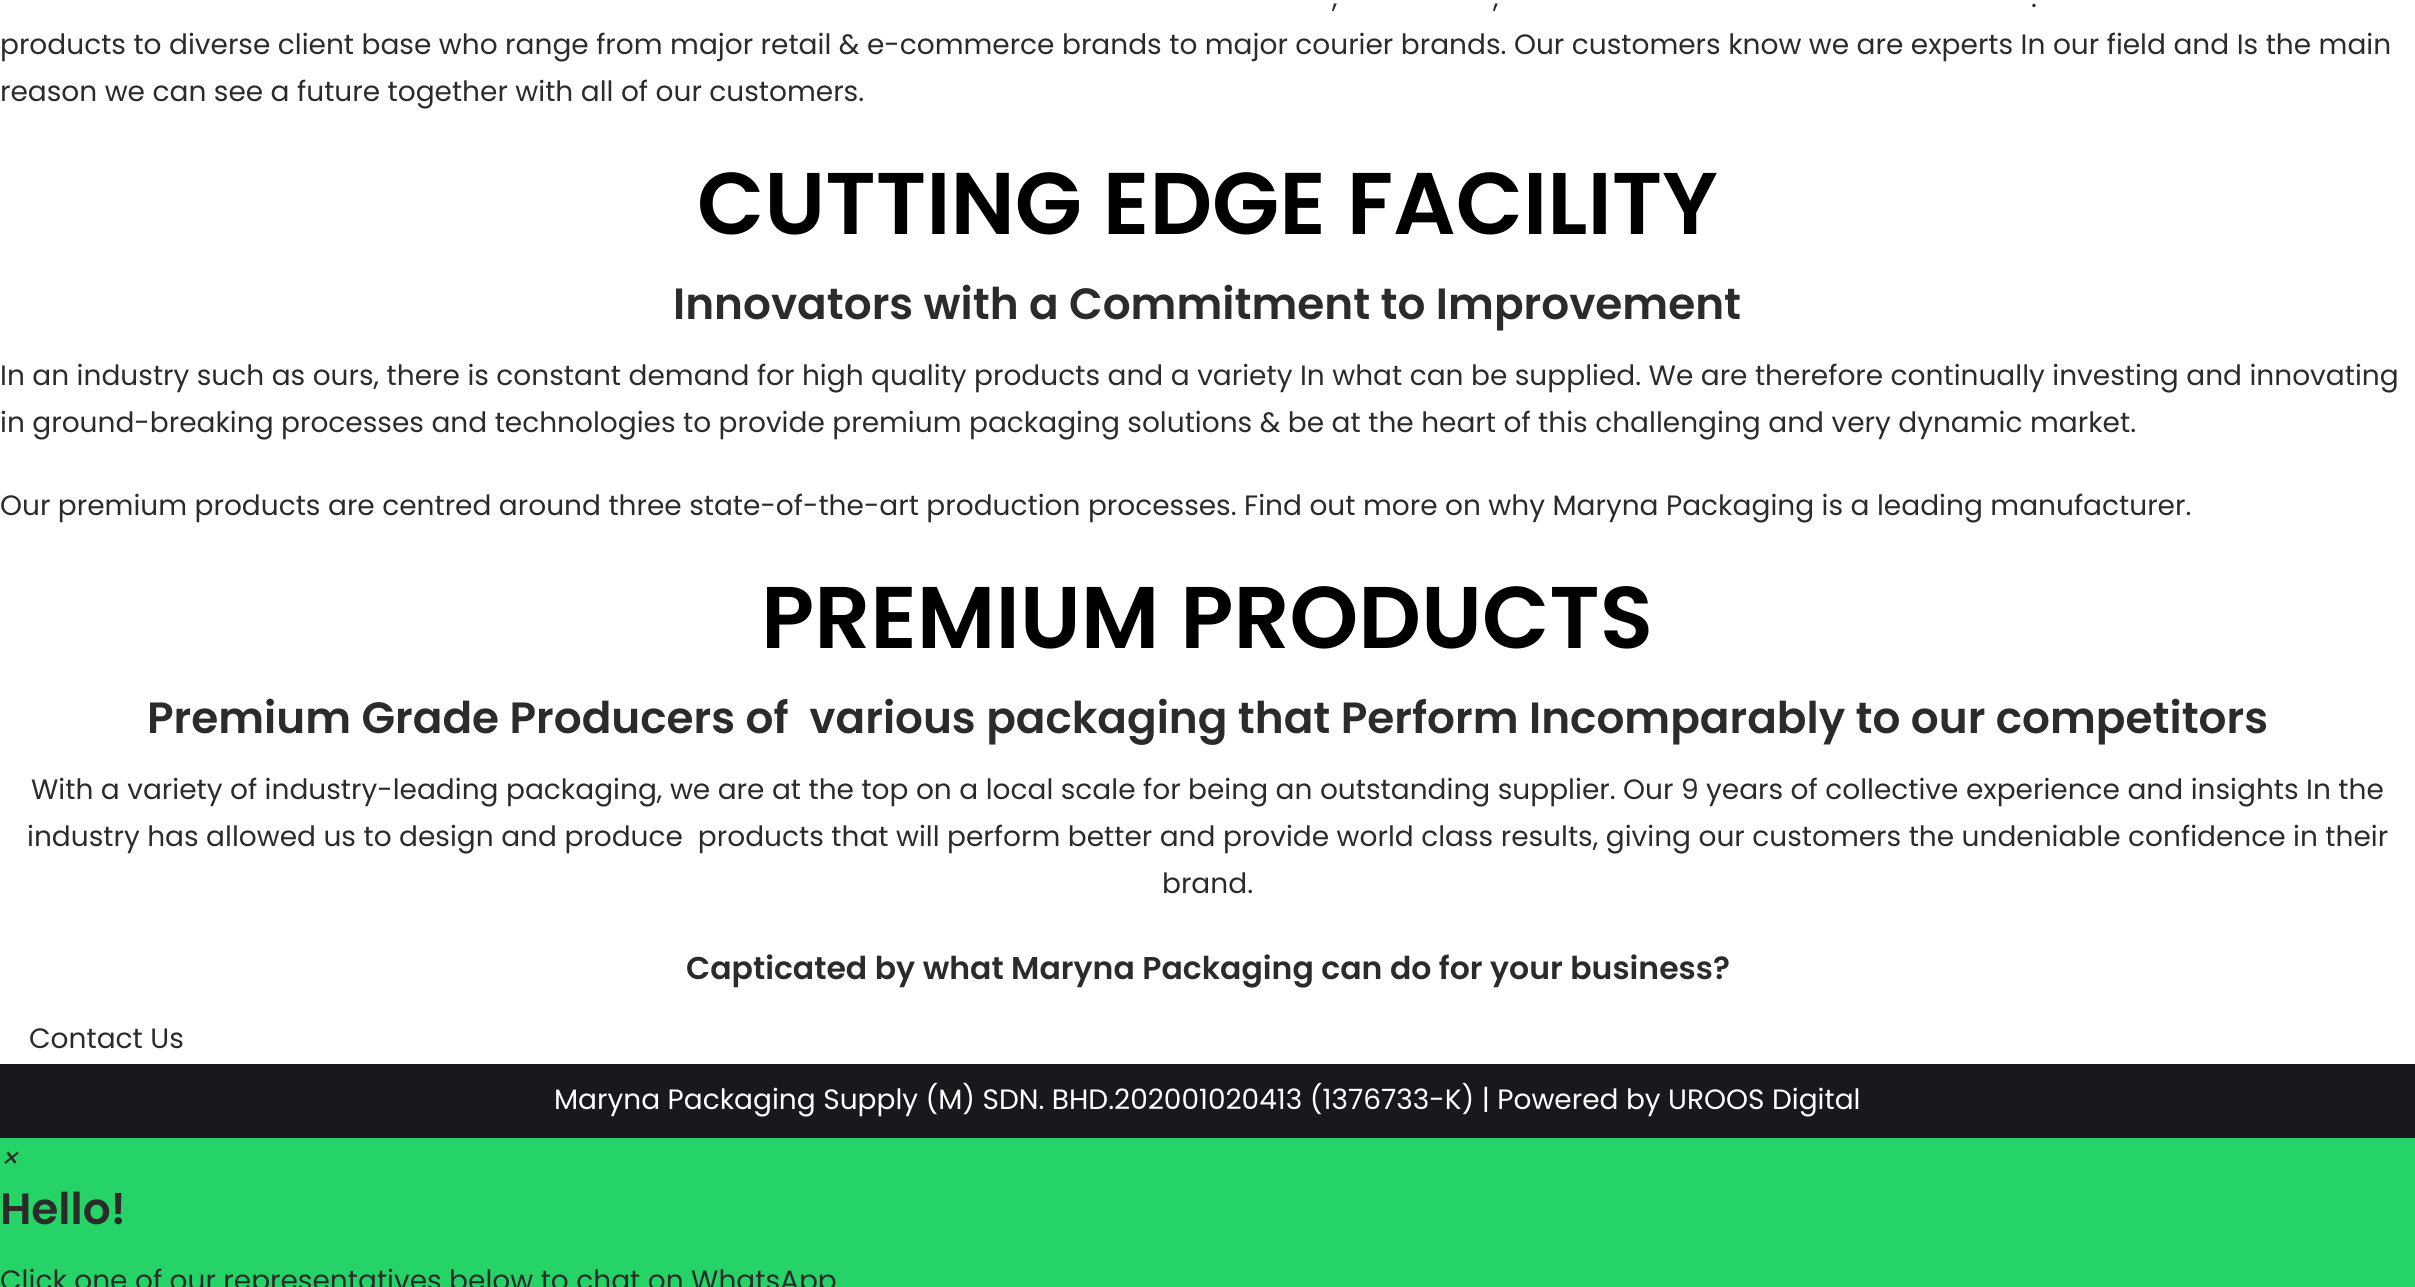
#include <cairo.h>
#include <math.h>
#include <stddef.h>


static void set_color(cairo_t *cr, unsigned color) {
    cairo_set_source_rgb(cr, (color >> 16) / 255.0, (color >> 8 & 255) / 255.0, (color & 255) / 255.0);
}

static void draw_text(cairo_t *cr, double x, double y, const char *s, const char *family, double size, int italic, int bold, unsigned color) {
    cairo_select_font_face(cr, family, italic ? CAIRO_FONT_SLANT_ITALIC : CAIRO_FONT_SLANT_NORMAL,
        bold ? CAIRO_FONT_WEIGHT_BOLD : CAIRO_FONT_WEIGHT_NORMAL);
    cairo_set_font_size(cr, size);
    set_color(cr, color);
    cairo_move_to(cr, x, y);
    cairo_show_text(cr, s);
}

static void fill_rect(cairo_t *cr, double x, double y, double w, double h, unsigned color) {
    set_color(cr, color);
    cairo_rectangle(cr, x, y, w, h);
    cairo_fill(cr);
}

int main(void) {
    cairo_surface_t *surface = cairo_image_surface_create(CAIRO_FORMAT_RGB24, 2415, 1287);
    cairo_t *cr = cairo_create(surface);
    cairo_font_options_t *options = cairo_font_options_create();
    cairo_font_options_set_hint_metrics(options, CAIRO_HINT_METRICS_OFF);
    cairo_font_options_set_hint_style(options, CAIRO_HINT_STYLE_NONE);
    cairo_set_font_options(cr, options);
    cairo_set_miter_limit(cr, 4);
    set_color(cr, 0xFFFFFF);
    cairo_paint(cr);
    draw_text(cr, 1332, 7, ",", "Poppins", 28, 0, 0, 0x2B2B2B);
    draw_text(cr, 1493, 7, ",", "Poppins", 28, 0, 0, 0x2B2B2B);
    draw_text(cr, 2031, 7, ".", "Poppins", 28, 0, 0, 0x2B2B2B);
    draw_text(cr, 0, 54, "products to diverse client base who range from major retail & e-commerce brands to major courier brands. Our customers know we are experts In our field and Is the main", "Poppins", 28, 0, 0, 0x2B2B2B);
    draw_text(cr, 0, 101, "reason we can see a future together with all of our customers.", "Poppins", 28, 0, 0, 0x2B2B2B);
    draw_text(cr, 697, 234, "CUTTING EDGE FACILITY", "Poppins SemiBold", 87.5, 0, 0, 0x000000);
    draw_text(cr, 673, 319, "Innovators with a Commitment to Improvement", "Poppins SemiBold", 43.75, 0, 0, 0x2B2B2B);
    draw_text(cr, 0, 385, "In an industry such as ours, there is constant demand for high quality products and a variety In what can be supplied. We are therefore continually investing and innovating", "Poppins", 28, 0, 0, 0x2B2B2B);
    draw_text(cr, 0, 432, "in ground-breaking processes and technologies to provide premium packaging solutions & be at the heart of this challenging and very dynamic market.", "Poppins", 28, 0, 0, 0x2B2B2B);
    draw_text(cr, 0, 515, "Our premium products are centred around three state-of-the-art production processes. Find out more on why Maryna Packaging is a leading manufacturer.", "Poppins", 28, 0, 0, 0x2B2B2B);
    draw_text(cr, 761, 648, "PREMIUM PRODUCTS", "Poppins SemiBold", 87.5, 0, 0, 0x000000);
    draw_text(cr, 147, 733, "Premium Grade Producers of  various packaging that Perform Incomparably to our competitors", "Poppins SemiBold", 43.75, 0, 0, 0x2B2B2B);
    draw_text(cr, 31, 799, "With a variety of industry-leading packaging, we are at the top on a local scale for being an outstanding supplier. Our 9 years of collective experience and insights In the", "Poppins", 28, 0, 0, 0x2B2B2B);
    draw_text(cr, 27, 846, "industry has allowed us to design and produce  products that will perform better and provide world class results, giving our customers the undeniable confidence in their", "Poppins", 28, 0, 0, 0x2B2B2B);
    draw_text(cr, 1162, 893, "brand.", "Poppins", 28, 0, 0, 0x2B2B2B);
    draw_text(cr, 686, 979, "Capticated by what Maryna Packaging can do for your business?", "Poppins SemiBold", 31.5, 0, 0, 0x2B2B2B);
    draw_text(cr, 29, 1048, "Contact Us", "Poppins", 28, 0, 0, 0x2B2B2B);
    fill_rect(cr, 0, 1064, 2415, 74, 0x18191D);
    draw_text(cr, 554, 1109, "Maryna Packaging Supply (M) SDN. BHD.202001020413 (1376733-K) | Powered by UROOS Digital", "Poppins", 28, 0, 0, 0xFFFFFF);
    fill_rect(cr, 0, 1138, 2415, 149, 0x25D366);
    draw_text(cr, 0, 1168, "×", "Poppins", 28, 1, 0, 0x2B2B2B);
    draw_text(cr, 0, 1224, "Hello!", "Poppins SemiBold", 43.75, 0, 0, 0x2B2B2B);
    draw_text(cr, 0, 1290, "Click one of our representatives below to chat on WhatsApp", "Poppins", 28, 0, 0, 0x2B2B2B);
    cairo_surface_write_to_png(surface, "output.png");
    cairo_font_options_destroy(options);
    cairo_destroy(cr);
    cairo_surface_destroy(surface);
    return 0;
}
